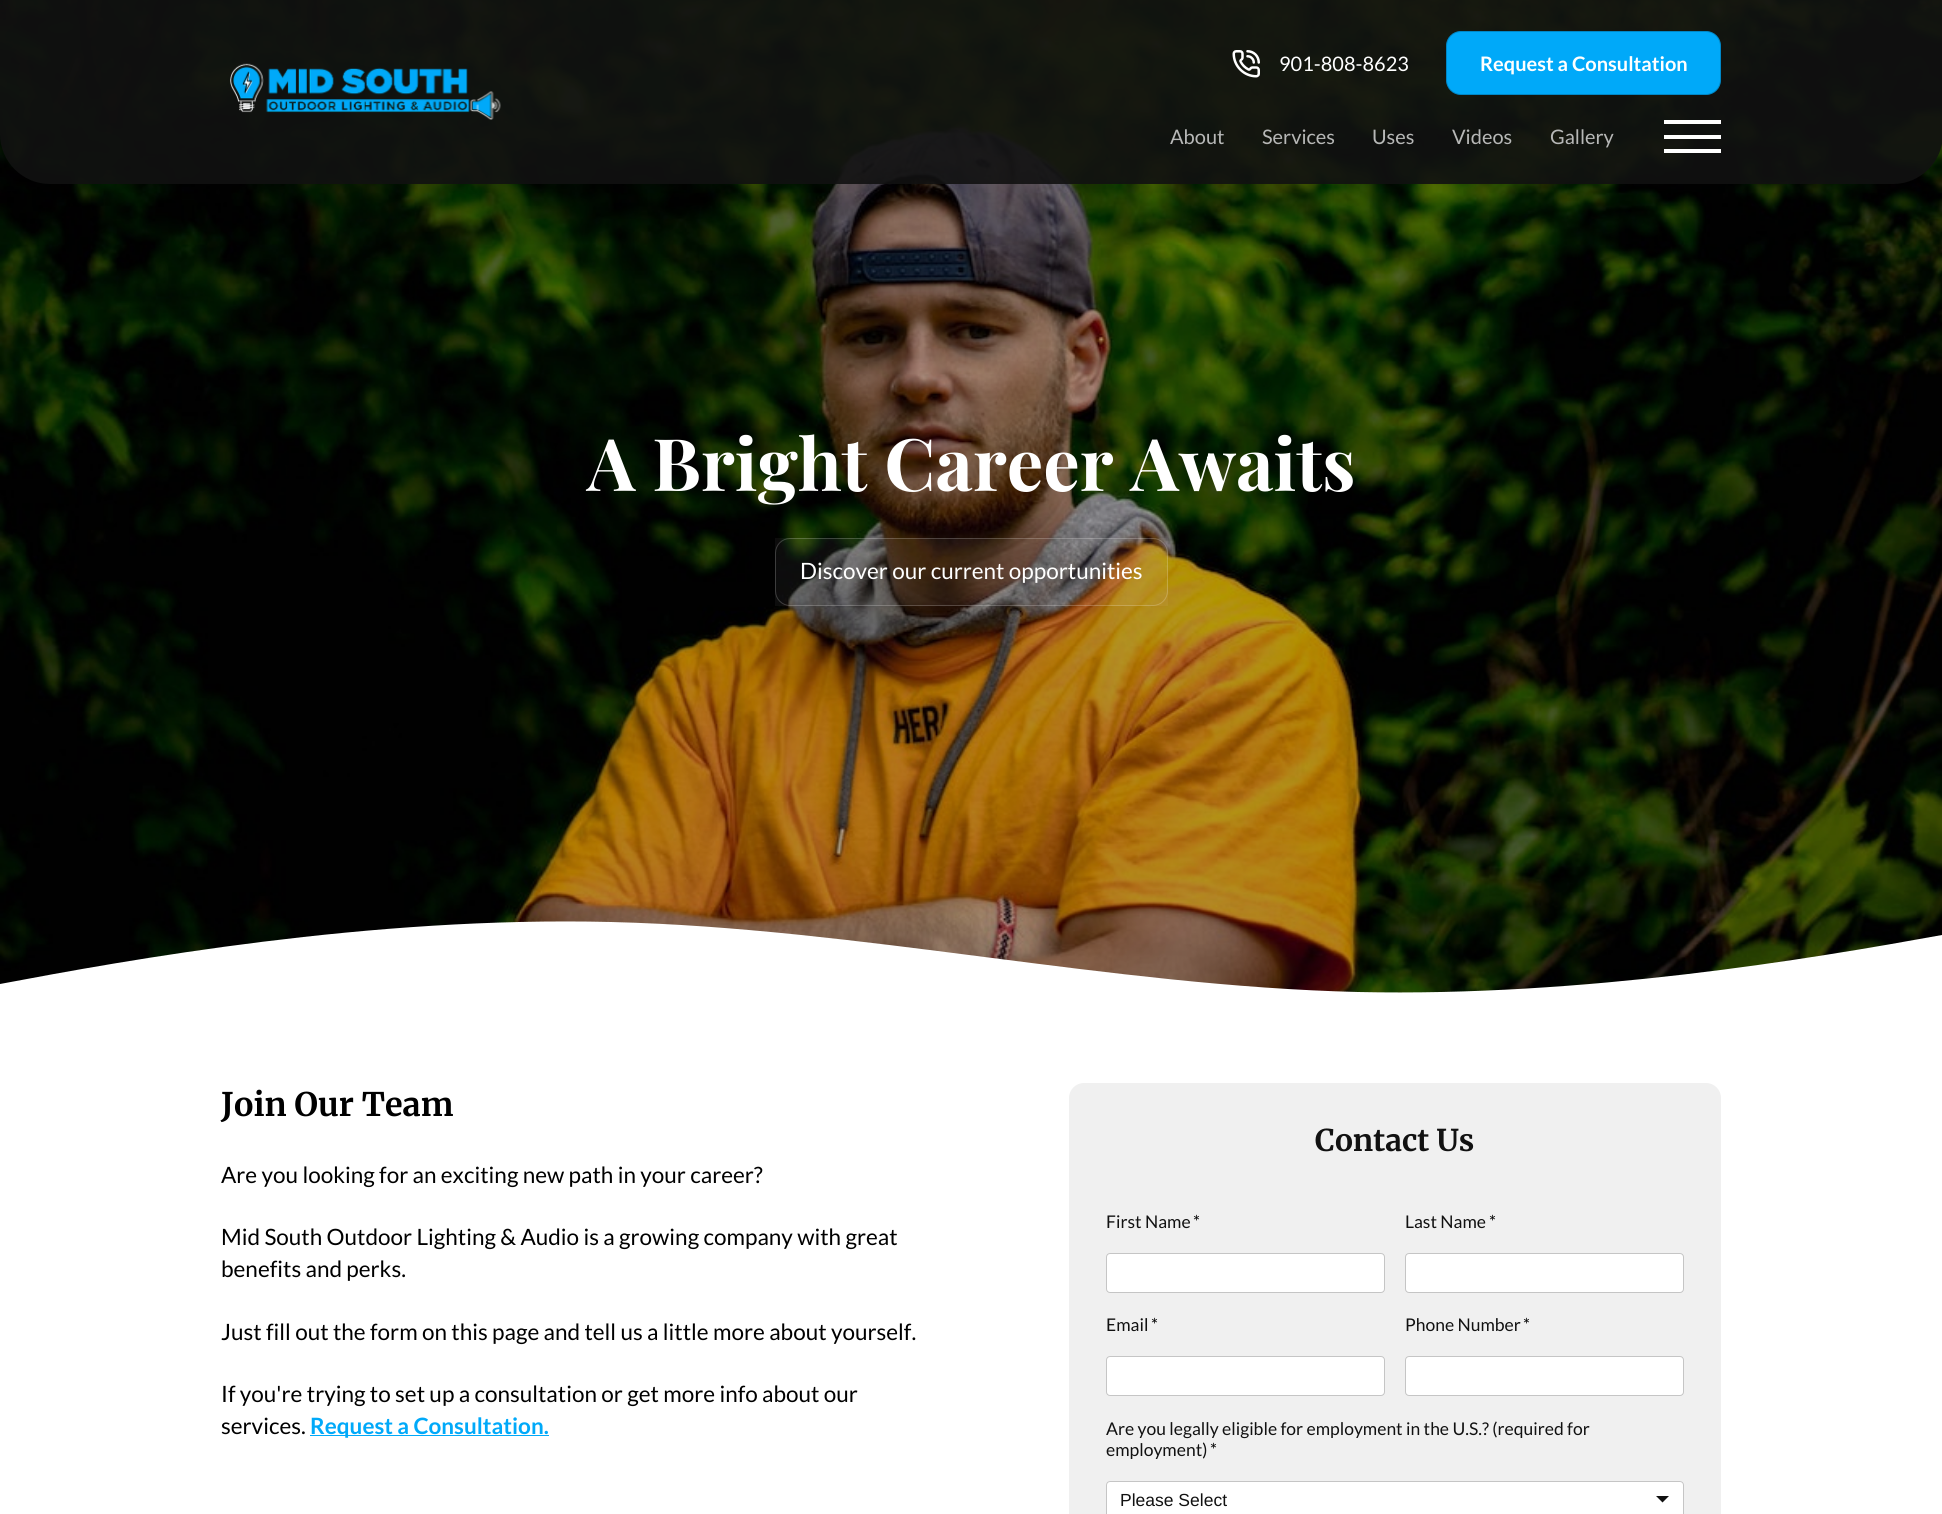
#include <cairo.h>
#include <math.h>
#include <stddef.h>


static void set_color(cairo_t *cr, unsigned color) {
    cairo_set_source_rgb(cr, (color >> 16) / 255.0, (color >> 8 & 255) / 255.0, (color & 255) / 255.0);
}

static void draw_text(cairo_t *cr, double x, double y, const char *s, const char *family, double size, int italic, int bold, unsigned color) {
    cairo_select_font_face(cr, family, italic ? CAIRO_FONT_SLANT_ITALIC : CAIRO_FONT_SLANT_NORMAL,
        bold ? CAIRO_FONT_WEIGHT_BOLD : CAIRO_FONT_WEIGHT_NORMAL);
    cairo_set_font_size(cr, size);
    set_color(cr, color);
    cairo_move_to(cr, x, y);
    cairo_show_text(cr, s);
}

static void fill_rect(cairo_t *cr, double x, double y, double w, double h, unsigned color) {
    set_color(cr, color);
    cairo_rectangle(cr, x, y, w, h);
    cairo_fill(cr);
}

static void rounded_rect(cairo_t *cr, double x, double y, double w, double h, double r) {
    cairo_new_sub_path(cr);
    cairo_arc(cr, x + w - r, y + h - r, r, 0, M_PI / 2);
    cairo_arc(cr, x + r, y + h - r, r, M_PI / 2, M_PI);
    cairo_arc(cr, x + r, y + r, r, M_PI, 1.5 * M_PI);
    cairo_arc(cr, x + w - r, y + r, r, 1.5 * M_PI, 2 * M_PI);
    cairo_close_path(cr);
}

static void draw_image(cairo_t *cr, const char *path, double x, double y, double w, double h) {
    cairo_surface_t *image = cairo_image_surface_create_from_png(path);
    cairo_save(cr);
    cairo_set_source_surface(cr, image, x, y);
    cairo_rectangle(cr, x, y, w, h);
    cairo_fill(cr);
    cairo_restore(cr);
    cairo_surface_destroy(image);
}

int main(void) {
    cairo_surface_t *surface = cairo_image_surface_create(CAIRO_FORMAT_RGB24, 1942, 1514);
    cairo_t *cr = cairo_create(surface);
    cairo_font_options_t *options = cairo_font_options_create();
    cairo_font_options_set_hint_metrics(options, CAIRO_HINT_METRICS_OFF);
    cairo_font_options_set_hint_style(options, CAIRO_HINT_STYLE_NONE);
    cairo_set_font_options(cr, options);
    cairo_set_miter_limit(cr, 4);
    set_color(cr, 0xFFFFFF);
    cairo_paint(cr);
    draw_image(cr, "assets/img3.png", 0, 0, 1942, 993);
    cairo_set_source_rgba(cr, 0.067, 0.067, 0.067, 0.9);
    cairo_new_path(cr);
    cairo_move_to(cr, 0, 0);
    cairo_line_to(cr, 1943, 0);
    cairo_line_to(cr, 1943, 134);
    cairo_curve_to(cr, 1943, 161.5, 1920.5, 184, 1893, 184);
    cairo_line_to(cr, 50, 184);
    cairo_curve_to(cr, 22.5, 184, 0, 161.5, 0, 134);
    cairo_close_path(cr);
    cairo_fill(cr);
    draw_image(cr, "assets/img1.png", 230, 63, 271, 57);
    draw_image(cr, "assets/img2.png", 1232, 50, 28, 28);
    draw_text(cr, 1279, 71, "901-808-8623", "Lato", 20, 0, 0, 0xFFFFFF);
    set_color(cr, 0x00A9F9);
    rounded_rect(cr, 1446, 31, 275, 64, 15);
    cairo_fill(cr);
    rounded_rect(cr, 1446.5, 31.5, 274, 63, 14.5);
    cairo_set_source_rgba(cr, 0, 0, 0, 0.2);
    cairo_set_line_width(cr, 1);
    cairo_stroke(cr);
    draw_text(cr, 1480, 71, "Request a Consultation", "Lato", 20, 0, 1, 0xFFFFFF);
    draw_text(cr, 1170, 144, "About", "Lato", 20, 0, 0, 0xB7B8B7);
    draw_text(cr, 1262, 144, "Services", "Lato", 20, 0, 0, 0xB7B8B7);
    draw_text(cr, 1372, 144, "Uses", "Lato", 20, 0, 0, 0xB7B8B7);
    draw_text(cr, 1452, 144, "Videos", "Lato", 20, 0, 0, 0xB7B8B7);
    draw_text(cr, 1550, 144, "Gallery", "Lato", 20, 0, 0, 0xB7B8B7);
    fill_rect(cr, 1664, 120, 57, 4, 0xFFFFFF);
    fill_rect(cr, 1664, 135, 57, 4, 0xFFFFFF);
    fill_rect(cr, 1664, 149, 57, 4, 0xFFFFFF);
    draw_text(cr, 587, 491, "A Bright Career Awaits", "Playfair Display", 72.5, 0, 1, 0xFFFFFF);
    cairo_set_source_rgba(cr, 1, 1, 1, 0.05);
    cairo_rectangle(cr, 775, 538, 393, 68);
    cairo_fill(cr);
    rounded_rect(cr, 775.5, 538.5, 392, 67, 14.5);
    cairo_set_source_rgba(cr, 1, 1, 1, 0.2);
    cairo_stroke(cr);
    draw_text(cr, 800, 579, "Discover our current opportunities", "Lato", 22.5, 0, 0, 0xFFFFFF);
    cairo_new_path(cr);
    cairo_move_to(cr, 0, 984);
    cairo_curve_to(cr, 127, 960, 370, 916, 611, 922);
    cairo_curve_to(cr, 859, 928, 1110, 986, 1358, 992);
    cairo_curve_to(cr, 1583, 997, 1810, 959, 1942, 935);
    cairo_line_to(cr, 1942, 1009);
    cairo_line_to(cr, 0, 1009);
    cairo_close_path(cr);
    cairo_fill(cr);
    draw_text(cr, 221, 1116, "Join Our Team", "Merriweather", 32.5, 0, 1, 0x000000);
    draw_text(cr, 221, 1183, "Are you looking for an exciting new path in your career?", "Lato", 22.5, 0, 0, 0x000000);
    draw_text(cr, 221, 1245, "Mid South Outdoor Lighting & Audio is a growing company with great", "Lato", 22.5, 0, 0, 0x000000);
    draw_text(cr, 221, 1277, "benefits and perks.", "Lato", 22.5, 0, 0, 0x000000);
    draw_text(cr, 221, 1340, "Just fill out the form on this page and tell us a little more about yourself.", "Lato", 22.5, 0, 0, 0x000000);
    draw_text(cr, 221, 1402, "If you're trying to set up a consultation or get more info about our", "Lato", 22.5, 0, 0, 0x000000);
    draw_text(cr, 221, 1434, "services.", "Lato", 22.5, 0, 0, 0x000000);
    fill_rect(cr, 310, 1435, 239, 1, 0x00A9F9);
    draw_text(cr, 310, 1434, "Request a Consultation.", "Lato", 22.5, 0, 1, 0x00A9F9);
    set_color(cr, 0xF0F0F0);
    rounded_rect(cr, 1069, 1083, 652, 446, 15);
    cairo_fill(cr);
    draw_text(cr, 1315, 1151, "Contact Us", "Merriweather", 30, 0, 1, 0x111111);
    draw_text(cr, 1106, 1228, "First Name", "Lato", 17.5, 0, 0, 0x111111);
    draw_text(cr, 1193, 1228, "*", "Lato", 17.5, 0, 0, 0x000000);
    set_color(cr, 0xFFFFFF);
    rounded_rect(cr, 1106.5, 1253.5, 278, 39, 3.5);
    cairo_fill_preserve(cr);
    set_color(cr, 0xC5C5C5);
    cairo_stroke(cr);
    draw_text(cr, 1405, 1228, "Last Name", "Lato", 17.5, 0, 0, 0x111111);
    draw_text(cr, 1489, 1228, "*", "Lato", 17.5, 0, 0, 0x000000);
    set_color(cr, 0xFFFFFF);
    rounded_rect(cr, 1405.5, 1253.5, 278, 39, 3.5);
    cairo_fill_preserve(cr);
    set_color(cr, 0xC5C5C5);
    cairo_stroke(cr);
    draw_text(cr, 1106, 1331, "Email", "Lato", 17.5, 0, 0, 0x111111);
    draw_text(cr, 1151, 1331, "*", "Lato", 17.5, 0, 0, 0x000000);
    set_color(cr, 0xFFFFFF);
    rounded_rect(cr, 1106.5, 1356.5, 278, 39, 3.5);
    cairo_fill_preserve(cr);
    set_color(cr, 0xC5C5C5);
    cairo_stroke(cr);
    draw_text(cr, 1405, 1331, "Phone Number", "Lato", 17.5, 0, 0, 0x111111);
    draw_text(cr, 1523, 1331, "*", "Lato", 17.5, 0, 0, 0x000000);
    set_color(cr, 0xFFFFFF);
    rounded_rect(cr, 1405.5, 1356.5, 278, 39, 3.5);
    cairo_fill_preserve(cr);
    set_color(cr, 0xC5C5C5);
    cairo_stroke(cr);
    draw_text(cr, 1106, 1435, "Are you legally eligible for employment in the U.S.? (required for", "Lato", 17.5, 0, 0, 0x111111);
    draw_text(cr, 1106, 1456, "employment)", "Lato", 17.5, 0, 0, 0x111111);
    draw_text(cr, 1210, 1456, "*", "Lato", 17.5, 0, 0, 0x000000);
    set_color(cr, 0xFFFFFF);
    rounded_rect(cr, 1106, 1481, 578, 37, 4);
    cairo_fill(cr);
    set_color(cr, 0x111111);
    cairo_new_path(cr);
    cairo_move_to(cr, 1669, 1496);
    cairo_line_to(cr, 1662.5, 1502.5);
    cairo_line_to(cr, 1656, 1496);
    cairo_close_path(cr);
    cairo_fill(cr);
    rounded_rect(cr, 1106.5, 1481.5, 577, 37, 3.5);
    set_color(cr, 0xC5C5C5);
    cairo_stroke(cr);
    draw_text(cr, 1120, 1506, "Please Select", "Liberation Sans", 17.5, 0, 0, 0x111111);
    cairo_surface_write_to_png(surface, "output.png");
    cairo_font_options_destroy(options);
    cairo_destroy(cr);
    cairo_surface_destroy(surface);
    return 0;
}
